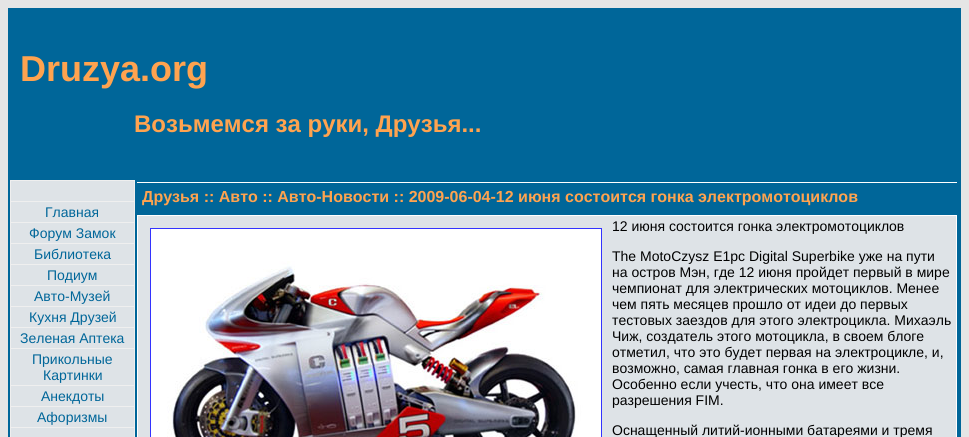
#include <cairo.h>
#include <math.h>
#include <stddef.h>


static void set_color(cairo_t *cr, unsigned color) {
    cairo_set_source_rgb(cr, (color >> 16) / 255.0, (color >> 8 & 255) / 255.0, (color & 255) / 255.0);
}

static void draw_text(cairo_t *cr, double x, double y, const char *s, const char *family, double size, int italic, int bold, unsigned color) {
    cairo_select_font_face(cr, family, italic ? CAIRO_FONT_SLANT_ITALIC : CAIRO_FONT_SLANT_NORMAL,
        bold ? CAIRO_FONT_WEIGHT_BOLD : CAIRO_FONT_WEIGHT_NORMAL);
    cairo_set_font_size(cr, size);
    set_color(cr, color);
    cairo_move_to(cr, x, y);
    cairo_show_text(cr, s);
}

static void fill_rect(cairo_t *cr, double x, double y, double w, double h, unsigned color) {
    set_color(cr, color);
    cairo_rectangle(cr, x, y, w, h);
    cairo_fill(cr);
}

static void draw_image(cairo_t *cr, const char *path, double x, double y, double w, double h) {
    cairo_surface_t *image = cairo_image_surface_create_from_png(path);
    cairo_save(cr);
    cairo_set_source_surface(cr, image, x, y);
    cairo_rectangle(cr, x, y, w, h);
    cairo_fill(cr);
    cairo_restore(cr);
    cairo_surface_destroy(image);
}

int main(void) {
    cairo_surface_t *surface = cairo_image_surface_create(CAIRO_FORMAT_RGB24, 969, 437);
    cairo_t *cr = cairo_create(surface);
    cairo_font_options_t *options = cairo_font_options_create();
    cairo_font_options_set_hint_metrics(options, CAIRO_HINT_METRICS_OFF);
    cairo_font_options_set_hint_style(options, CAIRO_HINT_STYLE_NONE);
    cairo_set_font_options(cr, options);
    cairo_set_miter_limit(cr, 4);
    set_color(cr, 0xE5E5E5);
    cairo_paint(cr);
    cairo_rectangle(cr, 9, 9, 951, 168);
    set_color(cr, 0x006699);
    cairo_stroke(cr);
    fill_rect(cr, 10, 10, 949, 166, 0x006699);
    draw_text(cr, 20, 81, "Druzya.org", "Liberation Sans", 36, 0, 1, 0xFFA34F);
    draw_text(cr, 134, 132, "Возьмемся за руки, Друзья...", "Liberation Sans", 24, 0, 1, 0xFFA34F);
    cairo_rectangle(cr, 9, 179, 951, 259);
    set_color(cr, 0x006699);
    cairo_stroke(cr);
    fill_rect(cr, 10, 180, 125, 257, 0xEFEFEF);
    fill_rect(cr, 11, 181, 123, 20, 0xDEE3E7);
    fill_rect(cr, 11, 202, 123, 20, 0xDEE3E7);
    draw_text(cr, 45, 217, "Главная", "Liberation Sans", 14, 0, 0, 0x006699);
    fill_rect(cr, 11, 223, 123, 20, 0xDEE3E7);
    draw_text(cr, 29, 238, "Форум Замок", "Liberation Sans", 14, 0, 0, 0x006699);
    fill_rect(cr, 11, 244, 123, 20, 0xDEE3E7);
    draw_text(cr, 34, 259, "Библиотека", "Liberation Sans", 14, 0, 0, 0x006699);
    fill_rect(cr, 11, 265, 123, 20, 0xDEE3E7);
    draw_text(cr, 47, 280, "Подиум", "Liberation Sans", 14, 0, 0, 0x006699);
    fill_rect(cr, 11, 286, 123, 20, 0xDEE3E7);
    draw_text(cr, 34, 301, "Авто-Музей", "Liberation Sans", 14, 0, 0, 0x006699);
    fill_rect(cr, 11, 307, 123, 20, 0xDEE3E7);
    draw_text(cr, 29, 322, "Кухня Друзей", "Liberation Sans", 14, 0, 0, 0x006699);
    fill_rect(cr, 11, 328, 123, 20, 0xDEE3E7);
    draw_text(cr, 20, 343, "Зеленая Аптека", "Liberation Sans", 14, 0, 0, 0x006699);
    fill_rect(cr, 11, 349, 123, 36, 0xDEE3E7);
    draw_text(cr, 32, 364, "Прикольные", "Liberation Sans", 14, 0, 0, 0x006699);
    draw_text(cr, 43, 380, "Картинки", "Liberation Sans", 14, 0, 0, 0x006699);
    fill_rect(cr, 11, 386, 123, 20, 0xDEE3E7);
    draw_text(cr, 41, 401, "Анекдоты", "Liberation Sans", 14, 0, 0, 0x006699);
    fill_rect(cr, 11, 407, 123, 20, 0xDEE3E7);
    draw_text(cr, 37, 422, "Афоризмы", "Liberation Sans", 14, 0, 0, 0x006699);
    fill_rect(cr, 11, 428, 123, 9, 0xDEE3E7);
    fill_rect(cr, 137, 182, 820, 1, 0xFFFFFF);
    cairo_rectangle(cr, 136, 181, 822, 31);
    set_color(cr, 0x006699);
    cairo_stroke(cr);
    fill_rect(cr, 137, 183, 820, 28, 0x006699);
    draw_text(cr, 142, 202, "Друзья :: Авто :: Авто-Новости :: 2009-06-04-12 июня состоится гонка электромотоциклов", "Liberation Sans", 16, 0, 1, 0xFFA34F);
    set_color(cr, 0xFFFFFF);
    cairo_rectangle(cr, 136, 214, 822, 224);
    cairo_fill_preserve(cr);
    set_color(cr, 0x006699);
    cairo_stroke(cr);
    fill_rect(cr, 138, 216, 818, 221, 0xDEE3E7);
    cairo_rectangle(cr, 150.5, 228.5, 451, 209);
    set_color(cr, 0x3333FF);
    cairo_set_line_width(cr, 1);
    cairo_stroke(cr);
    draw_image(cr, "assets/img1.png", 151, 229, 450, 208);
    draw_text(cr, 612, 231, "12 июня состоится гонка электромотоциклов", "Liberation Sans", 14, 0, 0, 0x000000);
    draw_text(cr, 612, 261, "The MotoCzysz E1pc Digital Superbike уже на пути", "Liberation Sans", 14, 0, 0, 0x000000);
    draw_text(cr, 612, 277, "на остров Мэн, где 12 июня пройдет первый в мире", "Liberation Sans", 14, 0, 0, 0x000000);
    draw_text(cr, 612, 293, "чемпионат для электрических мотоциклов. Менее", "Liberation Sans", 14, 0, 0, 0x000000);
    draw_text(cr, 612, 309, "чем пять месяцев прошло от идеи до первых", "Liberation Sans", 14, 0, 0, 0x000000);
    draw_text(cr, 612, 325, "тестовых заездов для этого электроцикла. Михаэль", "Liberation Sans", 14, 0, 0, 0x000000);
    draw_text(cr, 612, 341, "Чиж, создатель этого мотоцикла, в своем блоге", "Liberation Sans", 14, 0, 0, 0x000000);
    draw_text(cr, 612, 357, "отметил, что это будет первая на электроцикле, и,", "Liberation Sans", 14, 0, 0, 0x000000);
    draw_text(cr, 612, 373, "возможно, самая главная гонка в его жизни.", "Liberation Sans", 14, 0, 0, 0x000000);
    draw_text(cr, 612, 389, "Особенно если учесть, что она имеет все", "Liberation Sans", 14, 0, 0, 0x000000);
    draw_text(cr, 612, 405, "разрешения FIM.", "Liberation Sans", 14, 0, 0, 0x000000);
    draw_text(cr, 612, 435, "Оснащенный литий-ионными батареями и тремя", "Liberation Sans", 14, 0, 0, 0x000000);
    cairo_surface_write_to_png(surface, "output.png");
    cairo_font_options_destroy(options);
    cairo_destroy(cr);
    cairo_surface_destroy(surface);
    return 0;
}
